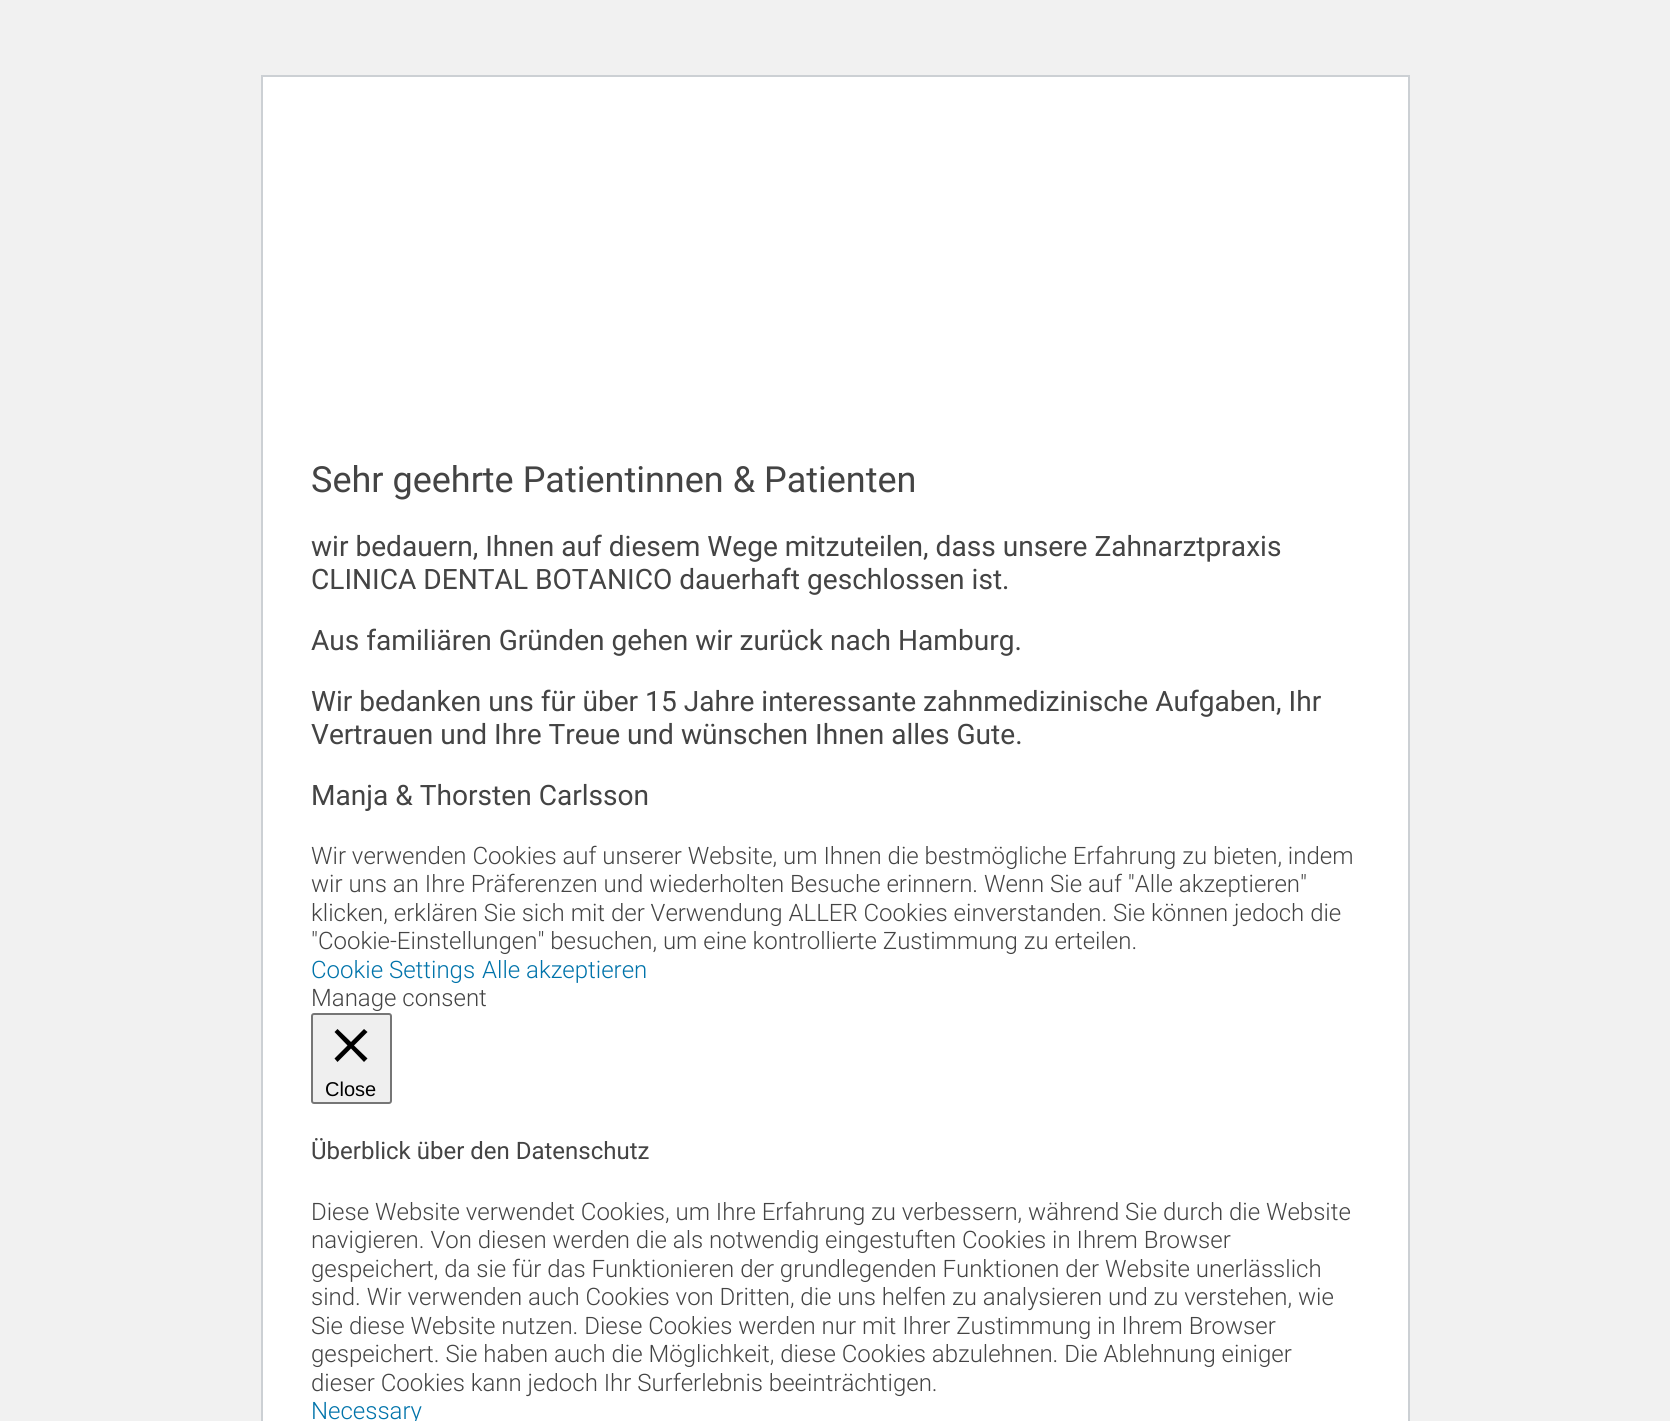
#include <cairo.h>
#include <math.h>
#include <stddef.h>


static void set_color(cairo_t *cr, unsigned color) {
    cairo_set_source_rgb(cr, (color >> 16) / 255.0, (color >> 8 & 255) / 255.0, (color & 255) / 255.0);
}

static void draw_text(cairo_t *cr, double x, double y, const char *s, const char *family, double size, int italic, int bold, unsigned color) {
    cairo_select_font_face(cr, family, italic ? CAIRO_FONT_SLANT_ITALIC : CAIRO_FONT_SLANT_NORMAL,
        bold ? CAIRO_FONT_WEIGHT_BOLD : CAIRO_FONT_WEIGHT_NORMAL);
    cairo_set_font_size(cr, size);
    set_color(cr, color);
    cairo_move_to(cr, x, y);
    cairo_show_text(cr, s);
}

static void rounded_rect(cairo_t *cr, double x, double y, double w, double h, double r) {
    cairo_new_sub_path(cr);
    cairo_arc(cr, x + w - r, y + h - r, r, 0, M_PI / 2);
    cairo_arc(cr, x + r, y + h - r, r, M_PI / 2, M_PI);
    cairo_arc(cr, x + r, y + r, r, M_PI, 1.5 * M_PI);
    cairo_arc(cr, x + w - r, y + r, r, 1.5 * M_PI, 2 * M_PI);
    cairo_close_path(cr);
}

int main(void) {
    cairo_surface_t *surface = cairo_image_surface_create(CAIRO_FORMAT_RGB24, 1670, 1421);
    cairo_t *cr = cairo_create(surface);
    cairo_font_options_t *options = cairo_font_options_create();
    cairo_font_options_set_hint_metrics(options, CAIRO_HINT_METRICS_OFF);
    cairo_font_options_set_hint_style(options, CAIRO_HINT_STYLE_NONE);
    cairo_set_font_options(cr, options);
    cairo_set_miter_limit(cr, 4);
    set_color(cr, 0xF1F1F1);
    cairo_paint(cr);
    set_color(cr, 0xFFFFFF);
    cairo_rectangle(cr, 262, 76, 1147, 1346);
    cairo_fill_preserve(cr);
    set_color(cr, 0xCCD0D4);
    cairo_stroke(cr);
    draw_text(cr, 311, 492, "Sehr geehrte Patientinnen & Patienten", "Roboto", 36, 0, 0, 0x444444);
    draw_text(cr, 311, 556, "wir bedauern, Ihnen auf diesem Wege mitzuteilen, dass unsere Zahnarztpraxis", "Roboto", 28.1, 0, 0, 0x444444);
    draw_text(cr, 311, 589, "CLINICA DENTAL BOTANICO dauerhaft geschlossen ist.", "Roboto", 28.1, 0, 0, 0x444444);
    draw_text(cr, 311, 650, "Aus familiären Gründen gehen wir zurück nach Hamburg.", "Roboto", 28.1, 0, 0, 0x444444);
    draw_text(cr, 311, 711, "Wir bedanken uns für über 15 Jahre interessante zahnmedizinische Aufgaben, Ihr", "Roboto", 28.1, 0, 0, 0x444444);
    draw_text(cr, 311, 744, "Vertrauen und Ihre Treue und wünschen Ihnen alles Gute.", "Roboto", 28.1, 0, 0, 0x444444);
    draw_text(cr, 311, 805, "Manja & Thorsten Carlsson", "Roboto", 28.1, 0, 0, 0x444444);
    draw_text(cr, 311, 864, "Wir verwenden Cookies auf unserer Website, um Ihnen die bestmögliche Erfahrung zu bieten, indem", "Roboto Light", 24, 0, 0, 0x444444);
    draw_text(cr, 311, 892, "wir uns an Ihre Präferenzen und wiederholten Besuche erinnern. Wenn Sie auf \"Alle akzeptieren\"", "Roboto Light", 24, 0, 0, 0x444444);
    draw_text(cr, 311, 921, "klicken, erklären Sie sich mit der Verwendung ALLER Cookies einverstanden. Sie können jedoch die", "Roboto Light", 24, 0, 0, 0x444444);
    draw_text(cr, 311, 949, "\"Cookie-Einstellungen\" besuchen, um eine kontrollierte Zustimmung zu erteilen.", "Roboto Light", 24, 0, 0, 0x444444);
    draw_text(cr, 311, 978, "Cookie Settings", "Roboto Light", 24, 0, 0, 0x0073AA);
    draw_text(cr, 482, 978, "Alle akzeptieren", "Roboto Light", 24, 0, 0, 0x0073AA);
    draw_text(cr, 311, 1006, "Manage consent", "Roboto Light", 24, 0, 0, 0x444444);
    set_color(cr, 0xEFEFEF);
    rounded_rect(cr, 312, 1014, 79, 89, 2);
    cairo_fill_preserve(cr);
    set_color(cr, 0x767676);
    cairo_stroke(cr);
    set_color(cr, 0x000000);
    cairo_new_path(cr);
    cairo_move_to(cr, 367.5, 1032);
    cairo_line_to(cr, 364, 1029);
    cairo_line_to(cr, 351, 1042);
    cairo_line_to(cr, 337.5, 1029);
    cairo_line_to(cr, 334.5, 1032);
    cairo_line_to(cr, 347.5, 1045.5);
    cairo_line_to(cr, 334.5, 1058.5);
    cairo_line_to(cr, 337.5, 1062);
    cairo_line_to(cr, 351, 1048.5);
    cairo_line_to(cr, 364, 1062);
    cairo_line_to(cr, 367.5, 1058.5);
    cairo_line_to(cr, 354, 1045.5);
    cairo_close_path(cr);
    cairo_fill(cr);
    draw_text(cr, 325, 1096, "Close", "Liberation Sans", 20, 0, 0, 0x000000);
    draw_text(cr, 311, 1159, "Überblick über den Datenschutz", "Roboto", 24, 0, 0, 0x444444);
    draw_text(cr, 311, 1220, "Diese Website verwendet Cookies, um Ihre Erfahrung zu verbessern, während Sie durch die Website", "Roboto Light", 24, 0, 0, 0x444444);
    draw_text(cr, 311, 1248, "navigieren. Von diesen werden die als notwendig eingestuften Cookies in Ihrem Browser", "Roboto Light", 24, 0, 0, 0x444444);
    draw_text(cr, 311, 1277, "gespeichert, da sie für das Funktionieren der grundlegenden Funktionen der Website unerlässlich", "Roboto Light", 24, 0, 0, 0x444444);
    draw_text(cr, 311, 1305, "sind. Wir verwenden auch Cookies von Dritten, die uns helfen zu analysieren und zu verstehen, wie", "Roboto Light", 24, 0, 0, 0x444444);
    draw_text(cr, 311, 1334, "Sie diese Website nutzen. Diese Cookies werden nur mit Ihrer Zustimmung in Ihrem Browser", "Roboto Light", 24, 0, 0, 0x444444);
    draw_text(cr, 311, 1362, "gespeichert. Sie haben auch die Möglichkeit, diese Cookies abzulehnen. Die Ablehnung einiger", "Roboto Light", 24, 0, 0, 0x444444);
    draw_text(cr, 311, 1391, "dieser Cookies kann jedoch Ihr Surferlebnis beeinträchtigen.", "Roboto Light", 24, 0, 0, 0x444444);
    draw_text(cr, 311, 1419, "Necessary", "Roboto Light", 24, 0, 0, 0x0073AA);
    cairo_surface_write_to_png(surface, "output.png");
    cairo_font_options_destroy(options);
    cairo_destroy(cr);
    cairo_surface_destroy(surface);
    return 0;
}
